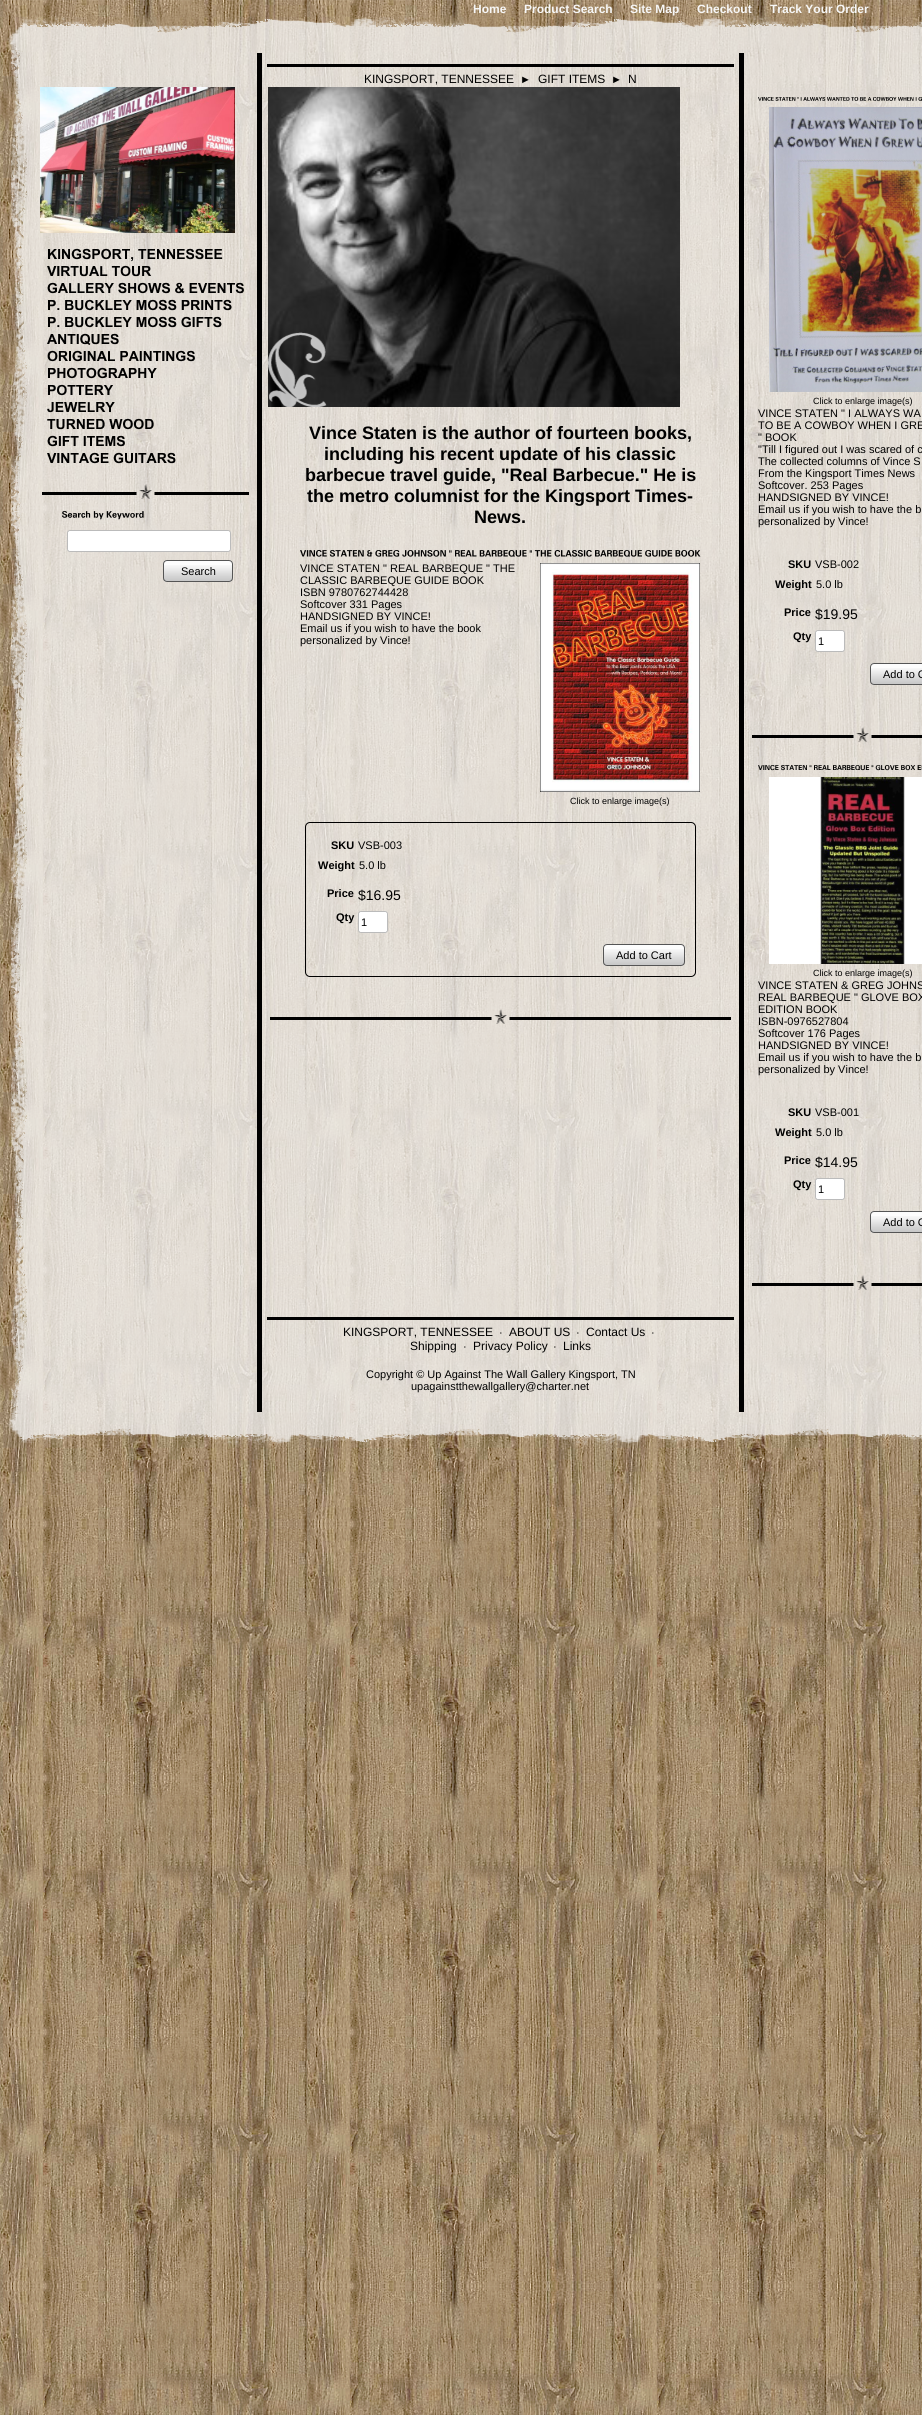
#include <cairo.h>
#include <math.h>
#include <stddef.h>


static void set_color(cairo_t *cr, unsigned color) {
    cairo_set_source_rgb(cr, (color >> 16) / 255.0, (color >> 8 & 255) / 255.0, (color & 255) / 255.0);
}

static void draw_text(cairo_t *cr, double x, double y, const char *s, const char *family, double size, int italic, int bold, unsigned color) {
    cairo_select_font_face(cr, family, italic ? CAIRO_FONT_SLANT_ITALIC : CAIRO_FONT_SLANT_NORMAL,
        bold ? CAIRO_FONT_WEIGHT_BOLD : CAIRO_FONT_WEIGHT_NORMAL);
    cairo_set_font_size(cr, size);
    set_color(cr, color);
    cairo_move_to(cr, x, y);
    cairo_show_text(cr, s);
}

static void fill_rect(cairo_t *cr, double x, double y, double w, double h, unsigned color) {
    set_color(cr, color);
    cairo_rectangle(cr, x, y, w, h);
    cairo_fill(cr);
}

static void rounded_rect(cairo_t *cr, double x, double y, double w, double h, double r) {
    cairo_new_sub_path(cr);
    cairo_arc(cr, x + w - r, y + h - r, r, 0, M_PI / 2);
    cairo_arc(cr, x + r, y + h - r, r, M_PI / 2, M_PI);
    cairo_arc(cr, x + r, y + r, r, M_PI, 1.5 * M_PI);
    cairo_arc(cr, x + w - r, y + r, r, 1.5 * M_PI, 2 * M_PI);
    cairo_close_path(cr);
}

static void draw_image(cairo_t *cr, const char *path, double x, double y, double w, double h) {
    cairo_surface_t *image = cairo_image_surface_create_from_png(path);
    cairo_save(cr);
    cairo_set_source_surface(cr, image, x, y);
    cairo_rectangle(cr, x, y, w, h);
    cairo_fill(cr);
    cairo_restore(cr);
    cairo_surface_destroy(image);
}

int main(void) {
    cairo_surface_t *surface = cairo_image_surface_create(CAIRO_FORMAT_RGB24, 922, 2415);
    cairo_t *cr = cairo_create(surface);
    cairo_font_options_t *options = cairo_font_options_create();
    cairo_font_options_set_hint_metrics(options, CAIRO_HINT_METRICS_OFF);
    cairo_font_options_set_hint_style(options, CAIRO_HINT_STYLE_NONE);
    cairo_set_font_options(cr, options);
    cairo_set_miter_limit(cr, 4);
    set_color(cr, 0xFFFFFF);
    cairo_paint(cr);
    draw_image(cr, "assets/img1.png", 0, 0, 922, 2415);
    draw_text(cr, 473, 13, "Home", "Liberation Sans", 12, 0, 1, 0xF7F7F7);
    draw_text(cr, 524, 13, "Product Search", "Liberation Sans", 12, 0, 1, 0xF7F7F7);
    draw_text(cr, 630, 13, "Site Map", "Liberation Sans", 12, 0, 1, 0xF7F7F7);
    draw_text(cr, 697, 13, "Checkout", "Liberation Sans", 12, 0, 1, 0xF7F7F7);
    draw_text(cr, 770, 13, "Track Your Order", "Liberation Sans", 12, 0, 1, 0xF7F7F7);
    draw_image(cr, "assets/img2.png", 7, 17, 29, 33);
    draw_image(cr, "assets/img3.png", 36, 16, 886, 34);
    draw_image(cr, "assets/img4.png", 9, 50, 27, 1363);
    cairo_set_source_rgba(cr, 0.969, 0.969, 0.969, 0.75);
    cairo_rectangle(cr, 36, 50, 886, 1363);
    cairo_fill(cr);
    fill_rect(cr, 257, 53, 5, 1359, 0x000000);
    fill_rect(cr, 267, 64, 467, 3, 0x000000);
    draw_text(cr, 364, 83, "KINGSPORT, TENNESSEE", "Liberation Sans", 12, 0, 0, 0x000000);
    draw_text(cr, 520, 83, "►", "Liberation Sans", 11, 0, 0, 0x000000);
    draw_text(cr, 538, 83, "GIFT ITEMS", "Liberation Sans", 12, 0, 0, 0x000000);
    draw_text(cr, 611, 83, "►", "Liberation Sans", 11, 0, 0, 0x000000);
    draw_text(cr, 628, 83, "N", "Liberation Sans", 12, 0, 0, 0x000000);
    fill_rect(cr, 739, 53, 5, 1359, 0x000000);
    draw_image(cr, "assets/img5.png", 40, 87, 195, 146);
    draw_image(cr, "assets/img6.png", 48, 248, 175, 14);
    draw_image(cr, "assets/img7.png", 47, 265, 104, 12);
    draw_image(cr, "assets/img8.png", 47, 282, 197, 12);
    draw_image(cr, "assets/img9.png", 48, 299, 184, 12);
    draw_image(cr, "assets/img10.png", 48, 316, 174, 12);
    draw_image(cr, "assets/img11.png", 47, 333, 72, 12);
    draw_image(cr, "assets/img12.png", 47, 350, 148, 12);
    draw_image(cr, "assets/img13.png", 48, 367, 109, 12);
    draw_image(cr, "assets/img14.png", 48, 384, 65, 12);
    draw_image(cr, "assets/img15.png", 47, 402, 68, 11);
    draw_image(cr, "assets/img16.png", 47, 418, 107, 12);
    draw_image(cr, "assets/img17.png", 47, 435, 78, 12);
    draw_image(cr, "assets/img18.png", 47, 452, 129, 12);
    draw_image(cr, "assets/img19.png", 42, 484, 207, 15);
    draw_image(cr, "assets/img20.png", 62, 511, 82, 9);
    set_color(cr, 0xFFFFFF);
    rounded_rect(cr, 67.5, 530.5, 163, 21, 2.5);
    cairo_fill_preserve(cr);
    set_color(cr, 0xBBBBBB);
    cairo_set_line_width(cr, 1);
    cairo_stroke(cr);
    set_color(cr, 0xFFFFFF);
    rounded_rect(cr, 68, 531, 162, 20, 3);
    cairo_fill(cr);
    set_color(cr, 0xFDFDFD);
    rounded_rect(cr, 163, 560, 70, 22, 4);
    cairo_fill(cr);
    draw_image(cr, "assets/img21.png", 163, 565, 70, 16);
    rounded_rect(cr, 163.5, 560.5, 69, 21, 3.5);
    set_color(cr, 0x555555);
    cairo_stroke(cr);
    draw_text(cr, 181, 575, "Search", "Liberation Sans", 11, 0, 0, 0x000000);
    draw_image(cr, "assets/img22.png", 268, 87, 412, 320);
    draw_text(cr, 309, 439, "Vince Staten is the author of fourteen books,", "Liberation Sans", 18, 0, 1, 0x000000);
    draw_text(cr, 324, 460, "including his recent update of his classic", "Liberation Sans", 18, 0, 1, 0x000000);
    draw_text(cr, 305, 481, "barbecue travel guide, \"Real Barbecue.\" He is", "Liberation Sans", 18, 0, 1, 0x000000);
    draw_text(cr, 307, 502, "the metro columnist for the Kingsport Times-", "Liberation Sans", 18, 0, 1, 0x000000);
    draw_text(cr, 474, 523, "News.", "Liberation Sans", 18, 0, 1, 0x000000);
    draw_image(cr, "assets/img23.png", 300, 550, 401, 7);
    draw_text(cr, 300, 572, "VINCE STATEN \" REAL BARBEQUE \" THE", "Liberation Sans", 11, 0, 0, 0x000000);
    draw_text(cr, 300, 584, "CLASSIC BARBEQUE GUIDE BOOK", "Liberation Sans", 11, 0, 0, 0x000000);
    draw_text(cr, 300, 596, "ISBN 9780762744428", "Liberation Sans", 11, 0, 0, 0x000000);
    draw_text(cr, 300, 608, "Softcover 331 Pages", "Liberation Sans", 11, 0, 0, 0x000000);
    draw_text(cr, 300, 620, "HANDSIGNED BY VINCE!", "Liberation Sans", 11, 0, 0, 0x000000);
    draw_text(cr, 300, 632, "Email us if you wish to have the book", "Liberation Sans", 11, 0, 0, 0x000000);
    draw_text(cr, 300, 644, "personalized by Vince!", "Liberation Sans", 11, 0, 0, 0x000000);
    draw_image(cr, "assets/img24.png", 540, 563, 160, 229);
    draw_text(cr, 570, 804, "Click to enlarge image(s)", "Liberation Sans", 9, 0, 0, 0x000000);
    rounded_rect(cr, 305.5, 822.5, 390, 154, 4.5);
    cairo_stroke(cr);
    draw_text(cr, 331, 849, "SKU", "Liberation Sans", 11, 0, 1, 0x000000);
    draw_text(cr, 358, 849, "VSB-003", "Liberation Sans", 11, 0, 0, 0x000000);
    draw_text(cr, 318, 869, "Weight", "Liberation Sans", 11, 0, 1, 0x000000);
    draw_text(cr, 359, 869, "5.0 lb", "Liberation Sans", 11, 0, 0, 0x000000);
    draw_text(cr, 327, 897, "Price", "Liberation Sans", 11, 0, 1, 0x000000);
    draw_text(cr, 358, 900, "$16.95", "Liberation Sans", 14, 0, 0, 0x000000);
    draw_text(cr, 336, 921, "Qty", "Liberation Sans", 11, 0, 1, 0x000000);
    set_color(cr, 0xFFFFFF);
    rounded_rect(cr, 358.5, 911.5, 29, 21, 2.5);
    cairo_fill_preserve(cr);
    set_color(cr, 0xBBBBBB);
    cairo_stroke(cr);
    set_color(cr, 0xFFFFFF);
    rounded_rect(cr, 359, 912, 28, 20, 3);
    cairo_fill(cr);
    draw_text(cr, 361, 926, "1", "Liberation Sans", 11, 0, 0, 0x000000);
    set_color(cr, 0xFDFDFD);
    rounded_rect(cr, 603, 944, 82, 22, 4);
    cairo_fill(cr);
    draw_image(cr, "assets/img25.png", 603, 949, 82, 16);
    rounded_rect(cr, 603.5, 944.5, 81, 21, 3.5);
    set_color(cr, 0x555555);
    cairo_stroke(cr);
    draw_text(cr, 616, 959, "Add to Cart", "Liberation Sans", 11, 0, 0, 0x000000);
    draw_image(cr, "assets/img26.png", 270, 1009, 461, 15);
    draw_image(cr, "assets/img27.png", 758, 97, 164, 4);
    draw_image(cr, "assets/img28.png", 769, 107, 153, 285);
    draw_text(cr, 813, 404, "Click to enlarge image(s)", "Liberation Sans", 9, 0, 0, 0x000000);
    draw_text(cr, 758, 417, "VINCE STATEN \" I ALWAYS WA", "Liberation Sans", 11, 0, 0, 0x000000);
    draw_text(cr, 758, 429, "TO BE A COWBOY WHEN I GRE", "Liberation Sans", 11, 0, 0, 0x000000);
    draw_text(cr, 758, 441, "\" BOOK", "Liberation Sans", 11, 0, 0, 0x000000);
    draw_text(cr, 758, 453, "\"Till I figured out I was scared of c", "Liberation Sans", 11, 0, 0, 0x000000);
    draw_text(cr, 758, 465, "The collected columns of Vince S", "Liberation Sans", 11, 0, 0, 0x000000);
    draw_text(cr, 758, 477, "From the Kingsport Times News", "Liberation Sans", 11, 0, 0, 0x000000);
    draw_text(cr, 758, 489, "Softcover. 253 Pages", "Liberation Sans", 11, 0, 0, 0x000000);
    draw_text(cr, 758, 501, "HANDSIGNED BY VINCE!", "Liberation Sans", 11, 0, 0, 0x000000);
    draw_text(cr, 758, 513, "Email us if you wish to have the b", "Liberation Sans", 11, 0, 0, 0x000000);
    draw_text(cr, 758, 525, "personalized by Vince!", "Liberation Sans", 11, 0, 0, 0x000000);
    draw_text(cr, 788, 568, "SKU", "Liberation Sans", 11, 0, 1, 0x000000);
    draw_text(cr, 815, 568, "VSB-002", "Liberation Sans", 11, 0, 0, 0x000000);
    draw_text(cr, 775, 588, "Weight", "Liberation Sans", 11, 0, 1, 0x000000);
    draw_text(cr, 816, 588, "5.0 lb", "Liberation Sans", 11, 0, 0, 0x000000);
    draw_text(cr, 784, 616, "Price", "Liberation Sans", 11, 0, 1, 0x000000);
    draw_text(cr, 815, 619, "$19.95", "Liberation Sans", 14, 0, 0, 0x000000);
    draw_text(cr, 793, 640, "Qty", "Liberation Sans", 11, 0, 1, 0x000000);
    set_color(cr, 0xFFFFFF);
    rounded_rect(cr, 815.5, 630.5, 29, 21, 2.5);
    cairo_fill_preserve(cr);
    set_color(cr, 0xBBBBBB);
    cairo_stroke(cr);
    set_color(cr, 0xFFFFFF);
    rounded_rect(cr, 816, 631, 28, 20, 3);
    cairo_fill(cr);
    draw_text(cr, 818, 645, "1", "Liberation Sans", 11, 0, 0, 0x000000);
    set_color(cr, 0xFDFDFD);
    rounded_rect(cr, 870, 663, 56, 22, 4);
    cairo_fill(cr);
    draw_image(cr, "assets/img29.png", 870, 668, 52, 16);
    rounded_rect(cr, 870.5, 663.5, 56, 21, 3.5);
    set_color(cr, 0x555555);
    cairo_stroke(cr);
    draw_text(cr, 883, 678, "Add to C", "Liberation Sans", 11, 0, 0, 0x000000);
    draw_image(cr, "assets/img30.png", 752, 727, 170, 15);
    draw_image(cr, "assets/img31.png", 758, 765, 164, 6);
    draw_image(cr, "assets/img32.png", 769, 777, 153, 187);
    draw_text(cr, 813, 976, "Click to enlarge image(s)", "Liberation Sans", 9, 0, 0, 0x000000);
    draw_text(cr, 758, 989, "VINCE STATEN & GREG JOHNS", "Liberation Sans", 11, 0, 0, 0x000000);
    draw_text(cr, 758, 1001, "REAL BARBEQUE \" GLOVE BOX", "Liberation Sans", 11, 0, 0, 0x000000);
    draw_text(cr, 758, 1013, "EDITION BOOK", "Liberation Sans", 11, 0, 0, 0x000000);
    draw_text(cr, 758, 1025, "ISBN-0976527804", "Liberation Sans", 11, 0, 0, 0x000000);
    draw_text(cr, 758, 1037, "Softcover 176 Pages", "Liberation Sans", 11, 0, 0, 0x000000);
    draw_text(cr, 758, 1049, "HANDSIGNED BY VINCE!", "Liberation Sans", 11, 0, 0, 0x000000);
    draw_text(cr, 758, 1061, "Email us if you wish to have the b", "Liberation Sans", 11, 0, 0, 0x000000);
    draw_text(cr, 758, 1073, "personalized by Vince!", "Liberation Sans", 11, 0, 0, 0x000000);
    draw_text(cr, 788, 1116, "SKU", "Liberation Sans", 11, 0, 1, 0x000000);
    draw_text(cr, 815, 1116, "VSB-001", "Liberation Sans", 11, 0, 0, 0x000000);
    draw_text(cr, 775, 1136, "Weight", "Liberation Sans", 11, 0, 1, 0x000000);
    draw_text(cr, 816, 1136, "5.0 lb", "Liberation Sans", 11, 0, 0, 0x000000);
    draw_text(cr, 784, 1164, "Price", "Liberation Sans", 11, 0, 1, 0x000000);
    draw_text(cr, 815, 1167, "$14.95", "Liberation Sans", 14, 0, 0, 0x000000);
    draw_text(cr, 793, 1188, "Qty", "Liberation Sans", 11, 0, 1, 0x000000);
    set_color(cr, 0xFFFFFF);
    rounded_rect(cr, 815.5, 1178.5, 29, 21, 2.5);
    cairo_fill_preserve(cr);
    set_color(cr, 0xBBBBBB);
    cairo_stroke(cr);
    set_color(cr, 0xFFFFFF);
    rounded_rect(cr, 816, 1179, 28, 20, 3);
    cairo_fill(cr);
    draw_text(cr, 818, 1193, "1", "Liberation Sans", 11, 0, 0, 0x000000);
    set_color(cr, 0xFDFDFD);
    rounded_rect(cr, 870, 1211, 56, 22, 4);
    cairo_fill(cr);
    draw_image(cr, "assets/img33.png", 870, 1216, 52, 16);
    rounded_rect(cr, 870.5, 1211.5, 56, 21, 3.5);
    set_color(cr, 0x555555);
    cairo_stroke(cr);
    draw_text(cr, 883, 1226, "Add to C", "Liberation Sans", 11, 0, 0, 0x000000);
    draw_image(cr, "assets/img34.png", 752, 1275, 170, 15);
    fill_rect(cr, 267, 1317, 467, 3, 0x000000);
    draw_text(cr, 343, 1336, "KINGSPORT, TENNESSEE", "Liberation Sans", 12, 0, 0, 0x000000);
    draw_text(cr, 499, 1336, "·", "Liberation Sans", 11, 0, 0, 0x000000);
    draw_text(cr, 509, 1336, "ABOUT US", "Liberation Sans", 12, 0, 0, 0x000000);
    draw_text(cr, 576, 1336, "·", "Liberation Sans", 11, 0, 0, 0x000000);
    draw_text(cr, 586, 1336, "Contact Us", "Liberation Sans", 12, 0, 0, 0x000000);
    draw_text(cr, 651, 1336, "·", "Liberation Sans", 11, 0, 0, 0x000000);
    draw_text(cr, 410, 1350, "Shipping", "Liberation Sans", 12, 0, 0, 0x000000);
    draw_text(cr, 463, 1350, "·", "Liberation Sans", 11, 0, 0, 0x000000);
    draw_text(cr, 473, 1350, "Privacy Policy", "Liberation Sans", 12, 0, 0, 0x000000);
    draw_text(cr, 553, 1350, "·", "Liberation Sans", 11, 0, 0, 0x000000);
    draw_text(cr, 563, 1350, "Links", "Liberation Sans", 12, 0, 0, 0x000000);
    draw_text(cr, 366, 1378, "Copyright © Up Against The Wall Gallery Kingsport, TN", "Liberation Sans", 11, 0, 0, 0x000000);
    draw_text(cr, 411, 1390, "upagainstthewallgallery@charter.net", "Liberation Sans", 11, 0, 0, 0x000000);
    draw_image(cr, "assets/img35.png", 7, 1413, 29, 30);
    draw_image(cr, "assets/img36.png", 36, 1413, 886, 32);
    cairo_surface_write_to_png(surface, "output.png");
    cairo_font_options_destroy(options);
    cairo_destroy(cr);
    cairo_surface_destroy(surface);
    return 0;
}
